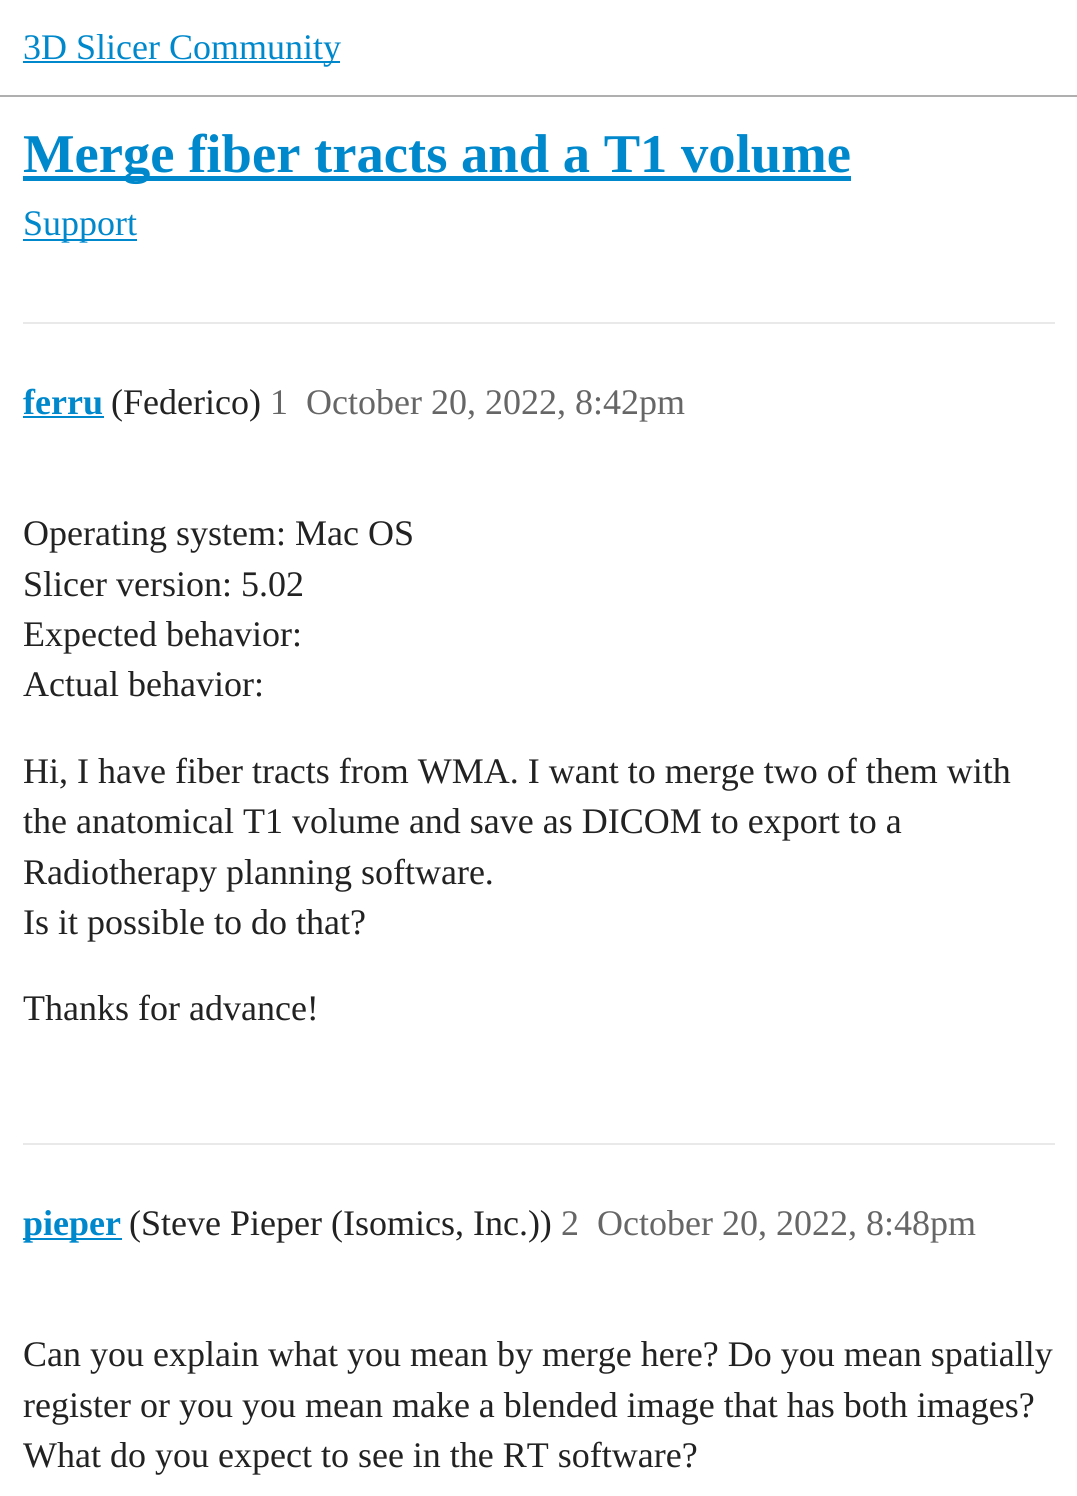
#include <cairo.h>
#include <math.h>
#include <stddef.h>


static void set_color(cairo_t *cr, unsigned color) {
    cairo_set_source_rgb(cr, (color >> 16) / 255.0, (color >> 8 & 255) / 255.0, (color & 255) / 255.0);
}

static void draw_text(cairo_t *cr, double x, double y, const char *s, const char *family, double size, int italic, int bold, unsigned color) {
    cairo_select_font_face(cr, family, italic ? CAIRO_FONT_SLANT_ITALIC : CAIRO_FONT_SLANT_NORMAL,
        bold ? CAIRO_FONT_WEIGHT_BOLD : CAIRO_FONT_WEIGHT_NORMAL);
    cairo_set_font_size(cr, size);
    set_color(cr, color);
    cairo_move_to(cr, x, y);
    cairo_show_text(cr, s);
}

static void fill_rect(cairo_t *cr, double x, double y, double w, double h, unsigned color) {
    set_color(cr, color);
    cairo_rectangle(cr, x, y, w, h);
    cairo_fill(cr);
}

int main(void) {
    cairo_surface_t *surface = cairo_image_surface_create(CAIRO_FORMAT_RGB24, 1077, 1496);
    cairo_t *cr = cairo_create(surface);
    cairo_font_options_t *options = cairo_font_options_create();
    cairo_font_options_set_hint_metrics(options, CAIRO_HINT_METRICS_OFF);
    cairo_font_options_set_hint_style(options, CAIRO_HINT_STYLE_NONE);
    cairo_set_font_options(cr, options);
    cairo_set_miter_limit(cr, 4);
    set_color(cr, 0xFFFFFF);
    cairo_paint(cr);
    fill_rect(cr, 0, 95, 1077, 2, 0xAFAFAF);
    fill_rect(cr, 23, 61, 317, 2, 0x0088CC);
    draw_text(cr, 23, 59, "3D Slicer Community", "Liberation Serif", 36, 0, 0, 0x0088CC);
    fill_rect(cr, 23, 176, 828, 5, 0x0088CC);
    draw_text(cr, 23, 172, "Merge fiber tracts and a T1 volume", "Liberation Serif", 54.6, 0, 1, 0x0088CC);
    fill_rect(cr, 23, 239, 114, 2, 0x0088CC);
    draw_text(cr, 23, 235, "Support", "Liberation Serif", 36, 0, 0, 0x0088CC);
    fill_rect(cr, 23, 322, 1032, 2, 0xE9E9E9);
    draw_text(cr, 23, 414, "ferru", "Liberation Serif", 36, 0, 1, 0x0088CC);
    fill_rect(cr, 23, 416, 81, 2, 0x0088CC);
    draw_text(cr, 111, 414, "(Federico)", "Liberation Serif", 36, 0, 0, 0x222222);
    draw_text(cr, 270, 414, "1", "Liberation Serif", 36, 0, 0, 0x666666);
    draw_text(cr, 306, 414, "October 20, 2022, 8:42pm", "Liberation Serif", 36, 0, 0, 0x666666);
    draw_text(cr, 23, 545, "Operating system: Mac OS", "Liberation Serif", 36, 0, 0, 0x222222);
    draw_text(cr, 23, 596, "Slicer version: 5.02", "Liberation Serif", 36, 0, 0, 0x222222);
    draw_text(cr, 23, 646, "Expected behavior:", "Liberation Serif", 36, 0, 0, 0x222222);
    draw_text(cr, 23, 696, "Actual behavior:", "Liberation Serif", 36, 0, 0, 0x222222);
    draw_text(cr, 23, 783, "Hi, I have fiber tracts from WMA. I want to merge two of them with", "Liberation Serif", 36, 0, 0, 0x222222);
    draw_text(cr, 23, 833, "the anatomical T1 volume and save as DICOM to export to a", "Liberation Serif", 36, 0, 0, 0x222222);
    draw_text(cr, 23, 884, "Radiotherapy planning software.", "Liberation Serif", 36, 0, 0, 0x222222);
    draw_text(cr, 23, 934, "Is it possible to do that?", "Liberation Serif", 36, 0, 0, 0x222222);
    draw_text(cr, 23, 1020, "Thanks for advance!", "Liberation Serif", 36, 0, 0, 0x222222);
    fill_rect(cr, 23, 1143, 1032, 2, 0xE9E9E9);
    fill_rect(cr, 23, 1238, 99, 2, 0x0088CC);
    draw_text(cr, 23, 1235, "pieper", "Liberation Serif", 36, 0, 1, 0x0088CC);
    draw_text(cr, 129, 1235, "(Steve Pieper (Isomics, Inc.))", "Liberation Serif", 36, 0, 0, 0x222222);
    draw_text(cr, 561, 1235, "2", "Liberation Serif", 36, 0, 0, 0x666666);
    draw_text(cr, 597, 1235, "October 20, 2022, 8:48pm", "Liberation Serif", 36, 0, 0, 0x666666);
    draw_text(cr, 23, 1366, "Can you explain what you mean by merge here? Do you mean spatially", "Liberation Serif", 36, 0, 0, 0x222222);
    draw_text(cr, 23, 1417, "register or you you mean make a blended image that has both images?", "Liberation Serif", 36, 0, 0, 0x222222);
    draw_text(cr, 23, 1467, "What do you expect to see in the RT software?", "Liberation Serif", 36, 0, 0, 0x222222);
    cairo_surface_write_to_png(surface, "output.png");
    cairo_font_options_destroy(options);
    cairo_destroy(cr);
    cairo_surface_destroy(surface);
    return 0;
}
